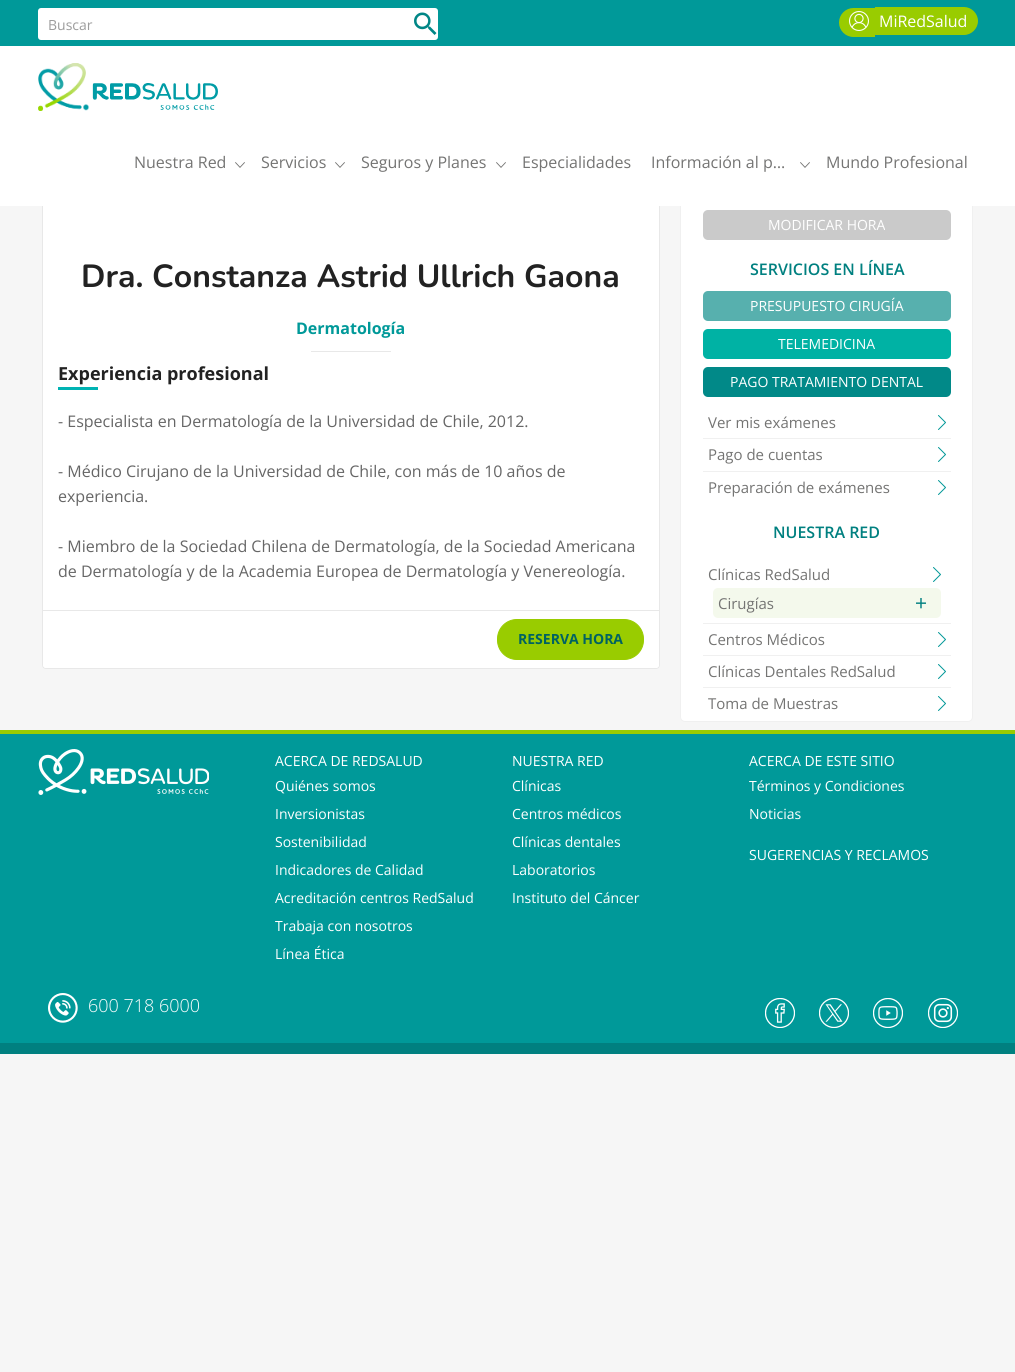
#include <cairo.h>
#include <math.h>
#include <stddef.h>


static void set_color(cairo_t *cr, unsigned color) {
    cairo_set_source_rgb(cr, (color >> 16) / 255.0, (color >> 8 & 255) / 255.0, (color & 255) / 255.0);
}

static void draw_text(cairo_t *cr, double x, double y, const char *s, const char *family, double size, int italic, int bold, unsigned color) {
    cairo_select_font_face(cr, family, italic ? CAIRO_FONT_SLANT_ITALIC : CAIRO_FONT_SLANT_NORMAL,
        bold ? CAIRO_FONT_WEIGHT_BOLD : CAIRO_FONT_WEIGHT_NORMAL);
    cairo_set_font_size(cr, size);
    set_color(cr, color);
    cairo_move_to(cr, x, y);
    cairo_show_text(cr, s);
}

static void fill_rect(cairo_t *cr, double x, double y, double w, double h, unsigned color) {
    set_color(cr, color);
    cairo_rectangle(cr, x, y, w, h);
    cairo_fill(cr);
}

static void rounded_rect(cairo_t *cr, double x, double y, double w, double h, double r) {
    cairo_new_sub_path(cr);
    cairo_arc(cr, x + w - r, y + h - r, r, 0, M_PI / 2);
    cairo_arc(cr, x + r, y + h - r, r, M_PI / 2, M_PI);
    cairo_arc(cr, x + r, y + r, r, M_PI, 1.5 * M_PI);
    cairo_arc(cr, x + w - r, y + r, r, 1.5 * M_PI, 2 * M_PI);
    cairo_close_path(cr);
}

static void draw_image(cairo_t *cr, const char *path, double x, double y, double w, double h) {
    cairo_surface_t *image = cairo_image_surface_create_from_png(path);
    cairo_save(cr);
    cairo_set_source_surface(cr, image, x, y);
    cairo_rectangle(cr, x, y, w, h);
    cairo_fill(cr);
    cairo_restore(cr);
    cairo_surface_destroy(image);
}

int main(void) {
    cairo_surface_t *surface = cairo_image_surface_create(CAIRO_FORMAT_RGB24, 1015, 1372);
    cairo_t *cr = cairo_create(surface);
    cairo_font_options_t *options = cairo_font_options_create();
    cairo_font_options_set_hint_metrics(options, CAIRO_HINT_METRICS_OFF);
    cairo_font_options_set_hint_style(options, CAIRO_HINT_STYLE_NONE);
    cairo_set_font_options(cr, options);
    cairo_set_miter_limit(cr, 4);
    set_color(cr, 0xF6F6F6);
    cairo_paint(cr);
    fill_rect(cr, 0, 0, 1015, 46, 0x009999);
    set_color(cr, 0xFFFFFF);
    rounded_rect(cr, 38, 8, 400, 32, 3);
    cairo_fill(cr);
    draw_text(cr, 48, 30, "Buscar", "Open Sans", 14, 0, 0, 0x9C9C9C);
    draw_image(cr, "assets/img1.png", 414, 12, 23, 23);
    set_color(cr, 0x99CC00);
    cairo_new_path(cr);
    cairo_move_to(cr, 853.5, 8);
    cairo_line_to(cr, 875, 8);
    cairo_line_to(cr, 875, 37);
    cairo_line_to(cr, 853.5, 37);
    cairo_curve_to(cr, 845.5, 37, 839, 30.5, 839, 22.5);
    cairo_curve_to(cr, 839, 14.5, 845.5, 8, 853.5, 8);
    cairo_close_path(cr);
    cairo_fill(cr);
    draw_image(cr, "assets/img2.png", 849, 11, 20, 20);
    cairo_new_path(cr);
    cairo_move_to(cr, 879, 7);
    cairo_line_to(cr, 964, 7);
    cairo_curve_to(cr, 971.5, 7, 978, 13.5, 978, 21);
    cairo_curve_to(cr, 978, 28.5, 971.5, 35, 964, 35);
    cairo_line_to(cr, 879, 35);
    cairo_close_path(cr);
    cairo_fill(cr);
    draw_text(cr, 879, 27, "MiRedSalud", "Open Sans", 16, 0, 0, 0xFFFFFF);
    fill_rect(cr, 875, 7, 4, 28, 0x99CC00);
    set_color(cr, 0xFFFFFF);
    rounded_rect(cr, 42.5, 121.5, 617, 547, 3.5);
    cairo_fill_preserve(cr);
    set_color(cr, 0xE8E8E8);
    cairo_set_line_width(cr, 1);
    cairo_stroke(cr);
    set_color(cr, 0xFFFFFF);
    rounded_rect(cr, 680.5, 121.5, 292, 600, 4.5);
    cairo_fill_preserve(cr);
    set_color(cr, 0xF0F0F0);
    cairo_stroke(cr);
    fill_rect(cr, 0, 46, 1015, 160, 0xFFFFFF);
    draw_image(cr, "assets/img3.png", 38, 63, 180, 48);
    draw_text(cr, 134, 168, "Nuestra Red", "Open Sans", 16, 0, 0, 0x747473);
    draw_image(cr, "assets/img4.png", 235, 162, 10, 6);
    draw_text(cr, 261, 168, "Servicios", "Open Sans", 16, 0, 0, 0x747473);
    draw_image(cr, "assets/img4.png", 335, 162, 10, 6);
    draw_text(cr, 361, 168, "Seguros y Planes", "Open Sans", 16, 0, 0, 0x747473);
    draw_image(cr, "assets/img4.png", 496, 162, 10, 6);
    draw_text(cr, 522, 168, "Especialidades", "Open Sans", 16, 0, 0, 0x747473);
    draw_text(cr, 651, 168, "Información al p…", "Open Sans", 16, 0, 0, 0x747473);
    draw_image(cr, "assets/img4.png", 800, 162, 10, 6);
    draw_text(cr, 826, 168, "Mundo Profesional", "Open Sans", 16, 0, 0, 0x747473);
    draw_text(cr, 81, 287, "Dra. Constanza Astrid Ullrich Gaona", "Nunito ExtraLight", 32, 0, 0, 0x222222);
    draw_text(cr, 296, 334, "Dermatología", "Open Sans", 16, 0, 1, 0x009999);
    fill_rect(cr, 311, 351, 80, 1, 0xE8E8E8);
    draw_text(cr, 58, 380, "Experiencia profesional", "Open Sans", 18, 0, 1, 0x222222);
    fill_rect(cr, 58, 387, 40, 3, 0x00B3B3);
    draw_text(cr, 58, 427, "- Especialista en Dermatología de la Universidad de Chile, 2012.", "Open Sans", 16, 0, 0, 0x666666);
    draw_text(cr, 58, 477, "- Médico Cirujano de la Universidad de Chile, con más de 10 años de", "Open Sans", 16, 0, 0, 0x666666);
    draw_text(cr, 58, 502, "experiencia.", "Open Sans", 16, 0, 0, 0x666666);
    draw_text(cr, 58, 552, "- Miembro de la Sociedad Chilena de Dermatología, de la Sociedad Americana", "Open Sans", 16, 0, 0, 0x666666);
    draw_text(cr, 58, 577, "de Dermatología y de la Academia Europea de Dermatología y Venereología.", "Open Sans", 16, 0, 0, 0x666666);
    set_color(cr, 0xFFFFFF);
    cairo_new_path(cr);
    cairo_move_to(cr, 43, 610);
    cairo_line_to(cr, 659, 610);
    cairo_line_to(cr, 659, 665);
    cairo_curve_to(cr, 659, 666.5, 657.5, 668, 656, 668);
    cairo_line_to(cr, 46, 668);
    cairo_curve_to(cr, 44.5, 668, 43, 666.5, 43, 665);
    cairo_close_path(cr);
    cairo_fill(cr);
    fill_rect(cr, 43, 610, 616, 1, 0xE8E8E8);
    set_color(cr, 0x99CC00);
    rounded_rect(cr, 497.5, 619.5, 146, 40, 19.5);
    cairo_fill_preserve(cr);
    cairo_stroke(cr);
    draw_text(cr, 518, 644, "RESERVA HORA", "Open Sans", 14, 0, 1, 0x006262);
    set_color(cr, 0xCACACA);
    rounded_rect(cr, 703, 210, 248, 30, 5);
    cairo_fill(cr);
    draw_text(cr, 768, 230, "MODIFICAR HORA", "Open Sans", 14, 0, 0, 0xFFFFFF);
    draw_text(cr, 750, 275, "SERVICIOS EN LÍNEA", "Open Sans SemiBold", 16, 0, 0, 0x008080);
    set_color(cr, 0x57B0AE);
    rounded_rect(cr, 703, 291, 248, 30, 5);
    cairo_fill(cr);
    draw_text(cr, 750, 311, "PRESUPUESTO CIRUGÍA", "Open Sans", 14, 0, 0, 0xFFFFFF);
    set_color(cr, 0x00B2A4);
    rounded_rect(cr, 703, 329, 248, 30, 5);
    cairo_fill(cr);
    draw_text(cr, 778, 349, "TELEMEDICINA", "Open Sans", 14, 0, 0, 0xFFFFFF);
    set_color(cr, 0x018988);
    rounded_rect(cr, 703, 367, 248, 30, 5);
    cairo_fill(cr);
    draw_text(cr, 730, 387, "PAGO TRATAMIENTO DENTAL", "Open Sans", 14, 0, 0, 0xFFFFFF);
    fill_rect(cr, 703, 438, 248, 1, 0xF0F0F0);
    draw_text(cr, 708, 428, "Ver mis exámenes", "Open Sans", 15, 0, 0, 0x747473);
    cairo_new_path(cr);
    cairo_move_to(cr, 938.5, 415.5);
    cairo_line_to(cr, 945.5, 422.5);
    cairo_line_to(cr, 938.5, 429.5);
    cairo_move_to(cr, 938.5, 447.5);
    cairo_line_to(cr, 945.5, 454.5);
    cairo_line_to(cr, 938.5, 461.5);
    set_color(cr, 0x009797);
    cairo_set_line_cap(cr, CAIRO_LINE_CAP_ROUND);
    cairo_set_line_join(cr, CAIRO_LINE_JOIN_ROUND);
    cairo_stroke(cr);
    fill_rect(cr, 703, 471, 248, 1, 0xF0F0F0);
    draw_text(cr, 708, 460, "Pago de cuentas", "Open Sans", 15, 0, 0, 0x747473);
    draw_text(cr, 708, 493, "Preparación de exámenes", "Open Sans", 15, 0, 0, 0x747473);
    cairo_new_path(cr);
    cairo_move_to(cr, 938.5, 480.5);
    cairo_line_to(cr, 945.5, 487.5);
    cairo_line_to(cr, 938.5, 494.5);
    set_color(cr, 0x009797);
    cairo_stroke(cr);
    draw_text(cr, 773, 538, "NUESTRA RED", "Open Sans SemiBold", 16, 0, 0, 0x008080);
    fill_rect(cr, 703, 623, 248, 1, 0xF0F0F0);
    draw_text(cr, 708, 580, "Clínicas RedSalud", "Open Sans", 15, 0, 0, 0x747473);
    cairo_new_path(cr);
    cairo_move_to(cr, 933.5, 567.5);
    cairo_line_to(cr, 940.5, 574.5);
    cairo_line_to(cr, 933.5, 581.5);
    set_color(cr, 0x009797);
    cairo_stroke(cr);
    set_color(cr, 0xF4F9EC);
    rounded_rect(cr, 713, 588, 228, 30, 5);
    cairo_fill(cr);
    draw_text(cr, 718, 609, "Cirugías", "Open Sans", 15, 0, 0, 0x747473);
    draw_image(cr, "assets/img5.png", 916, 598, 10, 11);
    fill_rect(cr, 703, 655, 248, 1, 0xF0F0F0);
    draw_text(cr, 708, 645, "Centros Médicos", "Open Sans", 15, 0, 0, 0x747473);
    cairo_new_path(cr);
    cairo_move_to(cr, 938.5, 632.5);
    cairo_line_to(cr, 945.5, 639.5);
    cairo_line_to(cr, 938.5, 646.5);
    cairo_move_to(cr, 938.5, 664.5);
    cairo_line_to(cr, 945.5, 671.5);
    cairo_line_to(cr, 938.5, 678.5);
    set_color(cr, 0x009797);
    cairo_stroke(cr);
    fill_rect(cr, 703, 687, 248, 1, 0xF0F0F0);
    draw_text(cr, 708, 677, "Clínicas Dentales RedSalud", "Open Sans", 15, 0, 0, 0x747473);
    draw_text(cr, 708, 709, "Toma de Muestras", "Open Sans", 15, 0, 0, 0x747473);
    cairo_new_path(cr);
    cairo_move_to(cr, 938.5, 696.5);
    cairo_line_to(cr, 945.5, 703.5);
    cairo_line_to(cr, 938.5, 710.5);
    set_color(cr, 0x009797);
    cairo_stroke(cr);
    fill_rect(cr, 0, 734, 1015, 309, 0x009999);
    fill_rect(cr, 0, 730, 1015, 4, 0x99CC00);
    draw_image(cr, "assets/img6.png", 38, 749, 171, 46);
    draw_text(cr, 275, 766, "ACERCA DE REDSALUD", "Open Sans", 14, 0, 0, 0xFFFFFF);
    draw_text(cr, 275, 791, "Quiénes somos", "Open Sans", 14, 0, 0, 0xFFFFFF);
    draw_text(cr, 275, 819, "Inversionistas", "Open Sans", 14, 0, 0, 0xFFFFFF);
    draw_text(cr, 275, 847, "Sostenibilidad", "Open Sans", 14, 0, 0, 0xFFFFFF);
    draw_text(cr, 275, 875, "Indicadores de Calidad", "Open Sans", 14, 0, 0, 0xFFFFFF);
    draw_text(cr, 275, 903, "Acreditación centros RedSalud", "Open Sans", 14, 0, 0, 0xFFFFFF);
    draw_text(cr, 275, 931, "Trabaja con nosotros", "Open Sans", 14, 0, 0, 0xFFFFFF);
    draw_text(cr, 275, 959, "Línea Ética", "Open Sans", 14, 0, 0, 0xFFFFFF);
    draw_text(cr, 512, 766, "NUESTRA RED", "Open Sans", 14, 0, 0, 0xFFFFFF);
    draw_text(cr, 512, 791, "Clínicas", "Open Sans", 14, 0, 0, 0xFFFFFF);
    draw_text(cr, 512, 819, "Centros médicos", "Open Sans", 14, 0, 0, 0xFFFFFF);
    draw_text(cr, 512, 847, "Clínicas dentales", "Open Sans", 14, 0, 0, 0xFFFFFF);
    draw_text(cr, 512, 875, "Laboratorios", "Open Sans", 14, 0, 0, 0xFFFFFF);
    draw_text(cr, 512, 903, "Instituto del Cáncer", "Open Sans", 14, 0, 0, 0xFFFFFF);
    draw_text(cr, 749, 766, "ACERCA DE ESTE SITIO", "Open Sans", 14, 0, 0, 0xFFFFFF);
    draw_text(cr, 749, 791, "Términos y Condiciones", "Open Sans", 14, 0, 0, 0xFFFFFF);
    draw_text(cr, 749, 819, "Noticias", "Open Sans", 14, 0, 0, 0xFFFFFF);
    draw_text(cr, 749, 860, "SUGERENCIAS Y RECLAMOS", "Open Sans", 14, 0, 0, 0xFFFFFF);
    draw_image(cr, "assets/img7.png", 48, 993, 30, 30);
    draw_text(cr, 88, 1012, "600 718 6000", "Open Sans Light", 18, 0, 0, 0xFFFFFF);
    draw_image(cr, "assets/img8.png", 765, 998, 30, 30);
    draw_image(cr, "assets/img9.png", 819, 998, 30, 30);
    draw_image(cr, "assets/img10.png", 873, 998, 30, 30);
    draw_image(cr, "assets/img11.png", 928, 998, 30, 30);
    fill_rect(cr, 0, 1043, 1015, 11, 0x008080);
    cairo_surface_write_to_png(surface, "output.png");
    cairo_font_options_destroy(options);
    cairo_destroy(cr);
    cairo_surface_destroy(surface);
    return 0;
}
